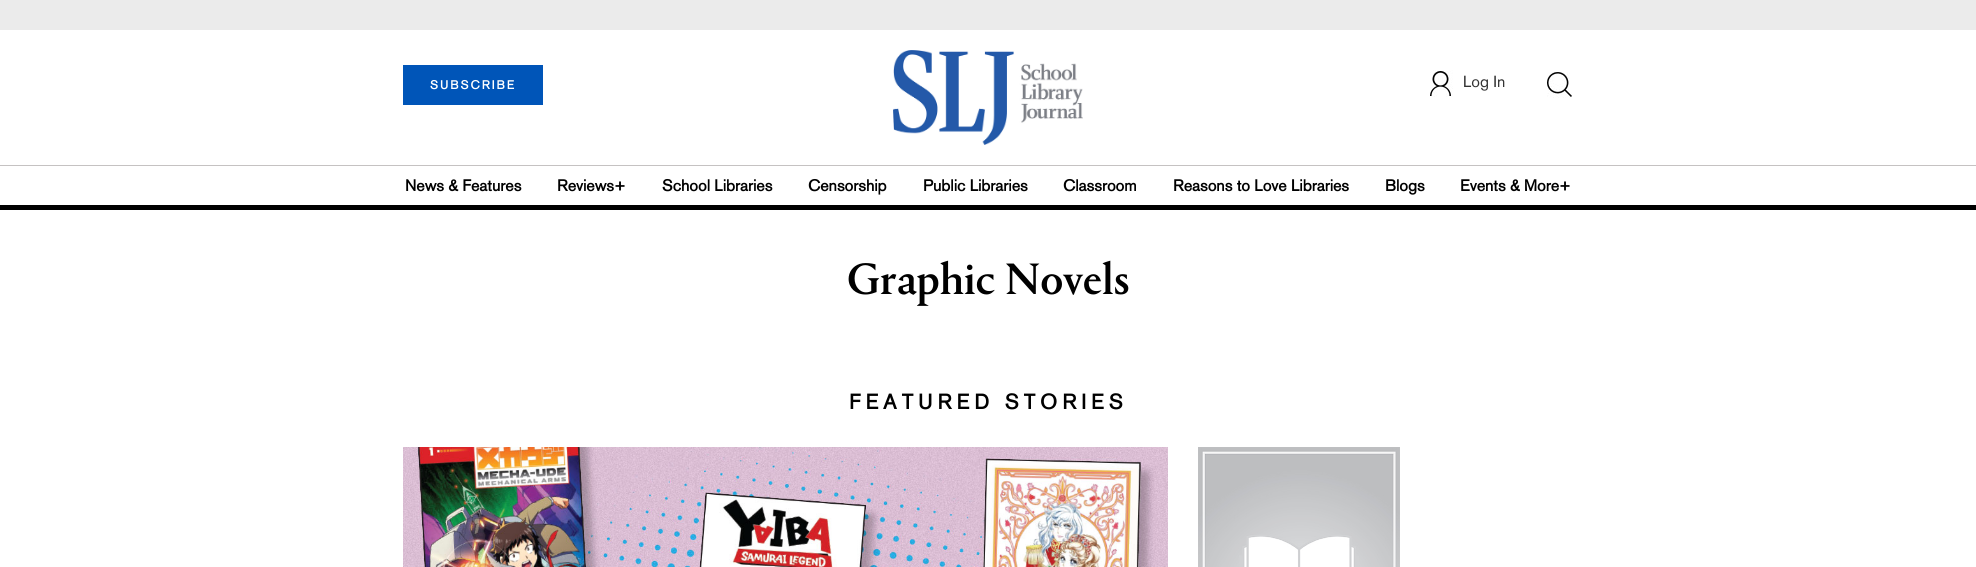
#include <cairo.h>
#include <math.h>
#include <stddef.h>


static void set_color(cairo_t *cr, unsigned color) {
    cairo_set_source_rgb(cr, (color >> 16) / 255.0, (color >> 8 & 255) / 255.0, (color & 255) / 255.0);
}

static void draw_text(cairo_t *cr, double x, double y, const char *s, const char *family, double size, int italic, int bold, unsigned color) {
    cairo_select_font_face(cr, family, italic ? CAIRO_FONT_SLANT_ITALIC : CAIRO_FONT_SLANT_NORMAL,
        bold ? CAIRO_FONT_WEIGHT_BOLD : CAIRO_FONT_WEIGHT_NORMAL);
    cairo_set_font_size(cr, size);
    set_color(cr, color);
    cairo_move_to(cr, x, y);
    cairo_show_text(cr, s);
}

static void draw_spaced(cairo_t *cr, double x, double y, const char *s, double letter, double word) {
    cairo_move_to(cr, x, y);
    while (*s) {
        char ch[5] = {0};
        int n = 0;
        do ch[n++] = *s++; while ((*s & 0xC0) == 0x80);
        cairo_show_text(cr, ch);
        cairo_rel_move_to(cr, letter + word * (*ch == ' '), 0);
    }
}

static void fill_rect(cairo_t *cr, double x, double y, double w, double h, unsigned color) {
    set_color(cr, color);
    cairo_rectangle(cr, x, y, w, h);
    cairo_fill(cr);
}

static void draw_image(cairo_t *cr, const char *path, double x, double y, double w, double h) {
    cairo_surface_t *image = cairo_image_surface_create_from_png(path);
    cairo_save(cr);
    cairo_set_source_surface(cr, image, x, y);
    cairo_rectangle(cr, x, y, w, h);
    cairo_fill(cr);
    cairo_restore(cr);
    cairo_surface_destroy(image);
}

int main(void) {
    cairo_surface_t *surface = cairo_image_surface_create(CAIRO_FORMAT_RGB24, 1976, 567);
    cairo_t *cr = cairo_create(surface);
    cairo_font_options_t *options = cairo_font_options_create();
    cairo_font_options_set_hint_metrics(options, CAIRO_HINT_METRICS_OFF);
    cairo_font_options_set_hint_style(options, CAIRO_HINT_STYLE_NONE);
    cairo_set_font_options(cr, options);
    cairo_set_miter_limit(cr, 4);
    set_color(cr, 0xFFFFFF);
    cairo_paint(cr);
    fill_rect(cr, 0, 0, 1976, 30, 0xEBEBEB);
    fill_rect(cr, 403, 65, 140, 40, 0x0055B8);
    cairo_select_font_face(cr, "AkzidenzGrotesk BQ", CAIRO_FONT_SLANT_NORMAL, CAIRO_FONT_WEIGHT_BOLD);
    cairo_set_font_size(cr, 12);
    set_color(cr, 0xFFFFFF);
    draw_spaced(cr, 430, 89, "SUBSCRIBE", 2, 0);
    draw_image(cr, "assets/img1.png", 893, 50, 190, 95);
    draw_image(cr, "assets/img2.png", 1430, 70, 23, 27);
    draw_text(cr, 1463, 87, "Log In", "AkzidenzGrotesk BQ Medium", 16, 0, 0, 0x333333);
    draw_image(cr, "assets/img3.png", 1547, 72, 25, 26);
    fill_rect(cr, 0, 165, 1976, 1, 0xC5C2C2);
    draw_text(cr, 405, 191, "News & Features", "AkzidenzGrotesk BQ", 16, 0, 1, 0x000000);
    draw_text(cr, 557, 191, "Reviews+", "AkzidenzGrotesk BQ", 16, 0, 1, 0x000000);
    draw_text(cr, 662, 191, "School Libraries", "AkzidenzGrotesk BQ", 16, 0, 1, 0x000000);
    draw_text(cr, 808, 191, "Censorship", "AkzidenzGrotesk BQ", 16, 0, 1, 0x000000);
    draw_text(cr, 923, 191, "Public Libraries", "AkzidenzGrotesk BQ", 16, 0, 1, 0x000000);
    draw_text(cr, 1063, 191, "Classroom", "AkzidenzGrotesk BQ", 16, 0, 1, 0x000000);
    draw_text(cr, 1173, 191, "Reasons to Love Libraries", "AkzidenzGrotesk BQ", 16, 0, 1, 0x000000);
    draw_text(cr, 1385, 191, "Blogs", "AkzidenzGrotesk BQ", 16, 0, 1, 0x000000);
    draw_text(cr, 1460, 191, "Events & More+", "AkzidenzGrotesk BQ", 16, 0, 1, 0x000000);
    fill_rect(cr, 0, 205, 1976, 5, 0x000000);
    draw_text(cr, 847, 294, "Graphic Novels", "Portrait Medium", 46, 0, 0, 0x000000);
    cairo_select_font_face(cr, "AkzidenzGrotesk BQ", CAIRO_FONT_SLANT_NORMAL, CAIRO_FONT_WEIGHT_BOLD);
    cairo_set_font_size(cr, 21);
    draw_spaced(cr, 849, 409, "FEATURED STORIES", 5, 0);
    draw_image(cr, "assets/img4.png", 403, 447, 765, 120);
    draw_image(cr, "assets/img5.png", 1198, 447, 202, 120);
    cairo_surface_write_to_png(surface, "output.png");
    cairo_font_options_destroy(options);
    cairo_destroy(cr);
    cairo_surface_destroy(surface);
    return 0;
}
